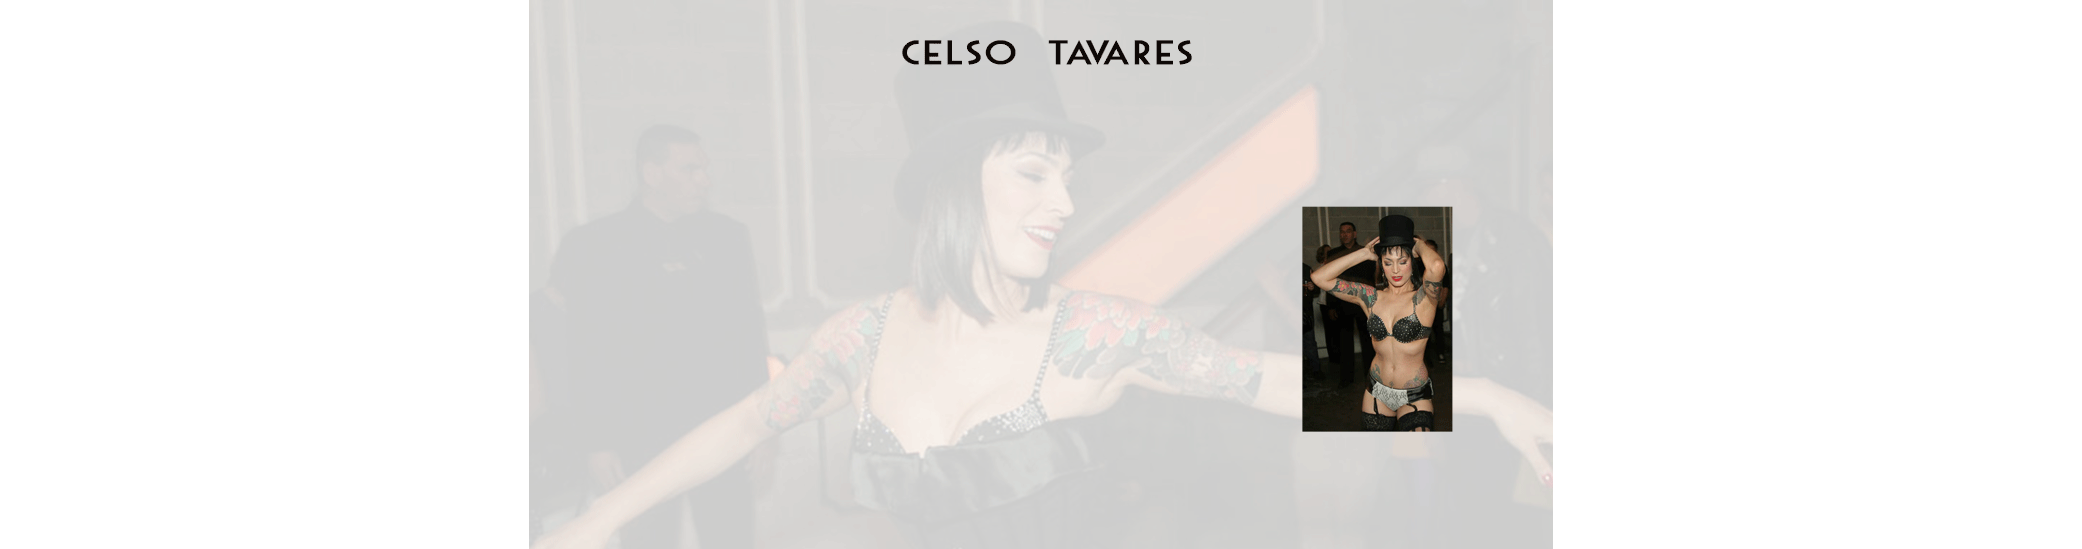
#include <cairo.h>
#include <math.h>
#include <stddef.h>


static void set_color(cairo_t *cr, unsigned color) {
    cairo_set_source_rgb(cr, (color >> 16) / 255.0, (color >> 8 & 255) / 255.0, (color & 255) / 255.0);
}

static void draw_image(cairo_t *cr, const char *path, double x, double y, double w, double h) {
    cairo_surface_t *image = cairo_image_surface_create_from_png(path);
    cairo_save(cr);
    cairo_set_source_surface(cr, image, x, y);
    cairo_rectangle(cr, x, y, w, h);
    cairo_fill(cr);
    cairo_restore(cr);
    cairo_surface_destroy(image);
}

int main(void) {
    cairo_surface_t *surface = cairo_image_surface_create(CAIRO_FORMAT_RGB24, 2082, 549);
    cairo_t *cr = cairo_create(surface);
    cairo_font_options_t *options = cairo_font_options_create();
    cairo_font_options_set_hint_metrics(options, CAIRO_HINT_METRICS_OFF);
    cairo_font_options_set_hint_style(options, CAIRO_HINT_STYLE_NONE);
    cairo_set_font_options(cr, options);
    cairo_set_miter_limit(cr, 4);
    set_color(cr, 0xFFFFFF);
    cairo_paint(cr);
    draw_image(cr, "assets/img1.png", 529, 0, 1024, 549);
    cairo_surface_write_to_png(surface, "output.png");
    cairo_font_options_destroy(options);
    cairo_destroy(cr);
    cairo_surface_destroy(surface);
    return 0;
}
